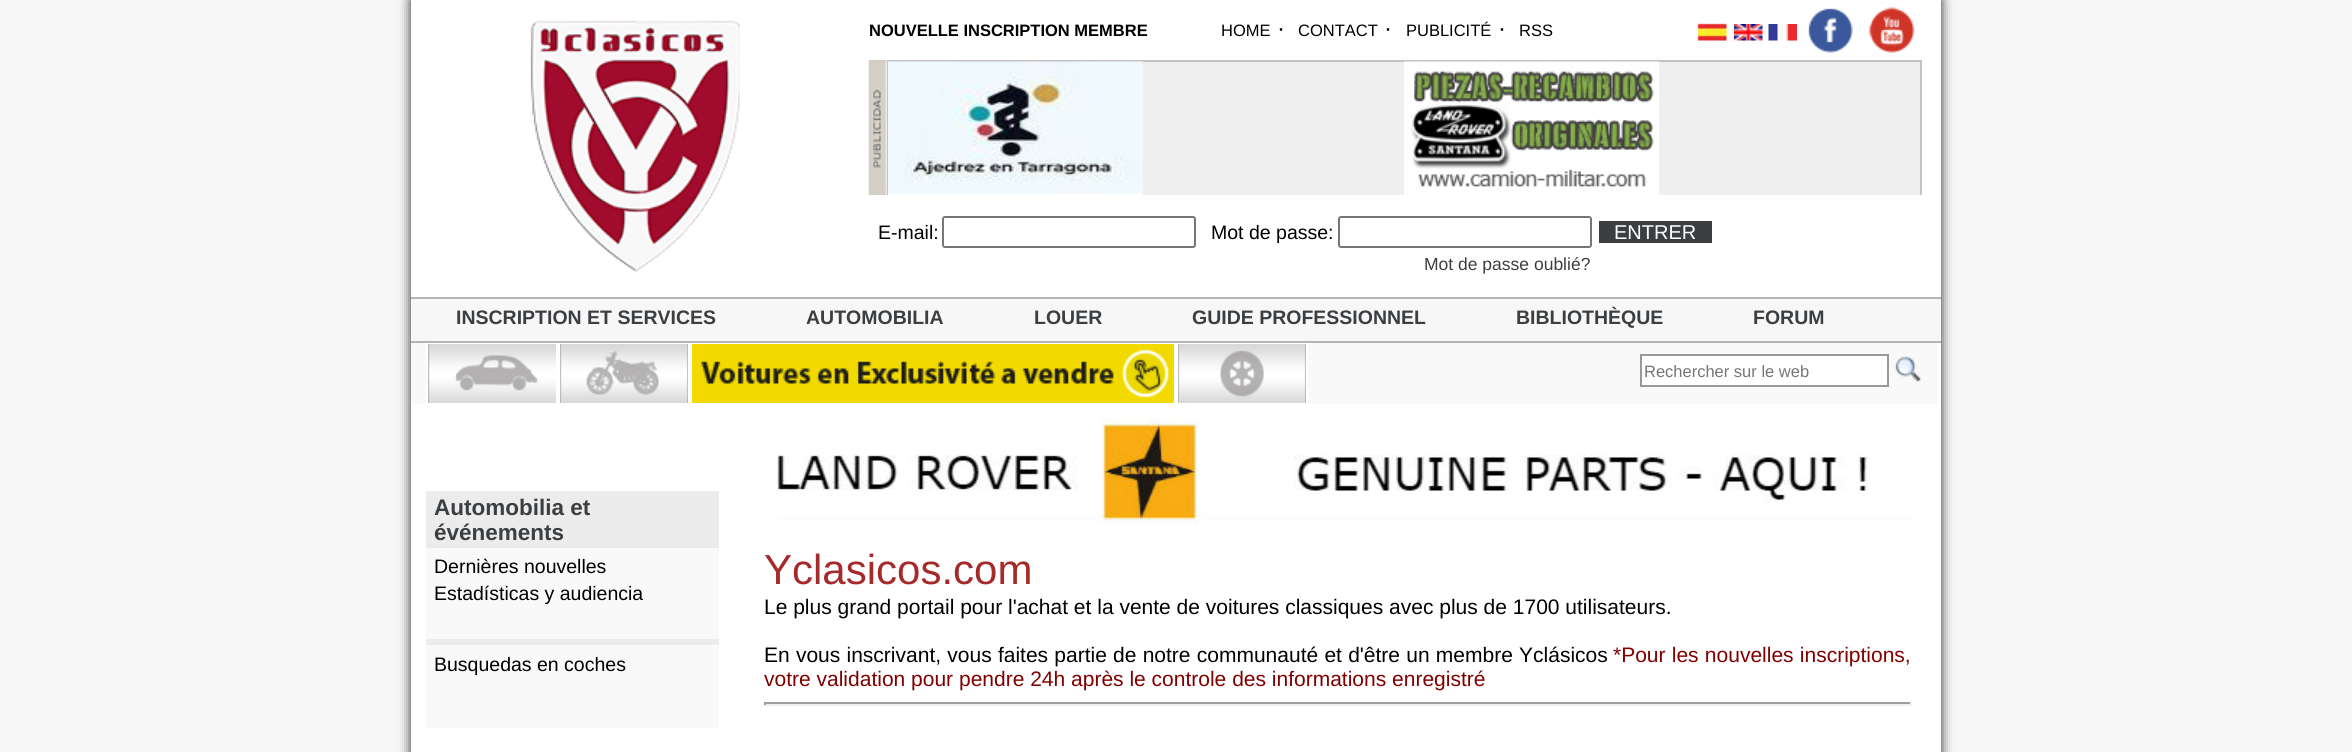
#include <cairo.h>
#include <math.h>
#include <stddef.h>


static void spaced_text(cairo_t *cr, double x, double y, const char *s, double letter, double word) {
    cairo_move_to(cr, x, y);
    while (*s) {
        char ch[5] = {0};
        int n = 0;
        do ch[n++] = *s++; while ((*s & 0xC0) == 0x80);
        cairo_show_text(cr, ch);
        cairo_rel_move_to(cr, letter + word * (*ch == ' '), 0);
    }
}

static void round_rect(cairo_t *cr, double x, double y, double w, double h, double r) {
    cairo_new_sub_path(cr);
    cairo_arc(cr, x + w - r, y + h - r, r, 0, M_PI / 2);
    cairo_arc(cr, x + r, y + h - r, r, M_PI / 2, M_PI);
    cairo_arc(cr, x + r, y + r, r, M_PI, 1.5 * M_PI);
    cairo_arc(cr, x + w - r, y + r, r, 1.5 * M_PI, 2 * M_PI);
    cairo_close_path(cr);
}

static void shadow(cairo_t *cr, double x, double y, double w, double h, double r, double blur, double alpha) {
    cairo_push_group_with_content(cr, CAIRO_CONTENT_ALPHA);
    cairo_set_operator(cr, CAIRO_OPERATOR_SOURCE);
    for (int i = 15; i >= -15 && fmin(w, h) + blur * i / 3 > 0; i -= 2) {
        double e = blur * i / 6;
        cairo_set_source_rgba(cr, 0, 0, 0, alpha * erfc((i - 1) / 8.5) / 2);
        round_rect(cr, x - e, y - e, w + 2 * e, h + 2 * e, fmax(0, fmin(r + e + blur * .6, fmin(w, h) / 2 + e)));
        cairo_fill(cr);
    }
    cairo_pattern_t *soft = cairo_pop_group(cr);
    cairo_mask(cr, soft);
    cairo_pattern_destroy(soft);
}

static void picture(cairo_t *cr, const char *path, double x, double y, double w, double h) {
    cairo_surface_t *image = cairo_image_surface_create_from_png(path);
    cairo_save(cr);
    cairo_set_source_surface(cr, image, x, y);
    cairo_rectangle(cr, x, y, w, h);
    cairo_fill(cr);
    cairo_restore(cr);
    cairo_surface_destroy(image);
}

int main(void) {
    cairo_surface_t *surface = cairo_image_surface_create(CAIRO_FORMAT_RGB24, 2352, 752);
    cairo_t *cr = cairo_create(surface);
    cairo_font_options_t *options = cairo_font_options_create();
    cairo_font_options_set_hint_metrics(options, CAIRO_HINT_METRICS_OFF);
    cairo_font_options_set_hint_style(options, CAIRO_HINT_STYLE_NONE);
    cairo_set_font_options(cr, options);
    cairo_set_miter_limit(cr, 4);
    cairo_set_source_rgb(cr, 0.965, 0.965, 0.965);
    cairo_paint(cr);
    cairo_set_source_rgb(cr, 0.133, 0.133, 0.133);
    shadow(cr, 411, 0, 1530, 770, 0, 6, 1);
    cairo_set_source_rgb(cr, 1, 1, 1);
    cairo_rectangle(cr, 411, 0, 1530, 752);
    cairo_fill(cr);
    picture(cr, "img1.png", 530, 20, 210, 252);
    cairo_select_font_face(cr, "Liberation Sans", CAIRO_FONT_SLANT_NORMAL, CAIRO_FONT_WEIGHT_BOLD);
    cairo_set_font_size(cr, 16.5);
    cairo_set_source_rgb(cr, 0, 0, 0);
    cairo_move_to(cr, 869, 36);
    cairo_show_text(cr, "NOUVELLE INSCRIPTION MEMBRE");
    cairo_select_font_face(cr, "Liberation Sans", CAIRO_FONT_SLANT_NORMAL, CAIRO_FONT_WEIGHT_NORMAL);
    cairo_move_to(cr, 1221, 36);
    cairo_show_text(cr, "HOME");
    cairo_set_font_size(cr, 24);
    cairo_move_to(cr, 1277, 36);
    cairo_show_text(cr, "·");
    cairo_set_font_size(cr, 16.5);
    cairo_move_to(cr, 1298, 36);
    cairo_show_text(cr, "CONTACT");
    cairo_set_font_size(cr, 24);
    cairo_move_to(cr, 1384, 36);
    cairo_show_text(cr, "·");
    cairo_set_font_size(cr, 16.5);
    cairo_move_to(cr, 1406, 36);
    cairo_show_text(cr, "PUBLICITÉ");
    cairo_set_font_size(cr, 24);
    cairo_move_to(cr, 1498, 36);
    cairo_show_text(cr, "·");
    cairo_set_font_size(cr, 16.5);
    cairo_move_to(cr, 1519, 36);
    cairo_show_text(cr, "RSS");
    picture(cr, "img2.png", 1697, 23, 30, 18);
    picture(cr, "img3.png", 1734, 24, 29, 17);
    picture(cr, "img4.png", 1768, 24, 29, 17);
    picture(cr, "img5.png", 1808, 7, 45, 46);
    picture(cr, "img6.png", 1868, 7, 47, 46);
    picture(cr, "img7.png", 868, 60, 19, 135);
    cairo_save(cr);
    cairo_rectangle(cr, 887, 60, 1035, 135);
    cairo_clip(cr);
    cairo_rectangle(cr, 888, 61, 1033, 136);
    cairo_set_source_rgb(cr, 0.769, 0.761, 0.761);
    cairo_stroke(cr);
    cairo_restore(cr);
    cairo_set_source_rgb(cr, 0.937, 0.937, 0.937);
    cairo_rectangle(cr, 1143, 62, 261, 133);
    cairo_fill(cr);
    cairo_set_source_rgb(cr, 1, 1, 1);
    cairo_rectangle(cr, 888, 193, 1, 2);
    cairo_fill(cr);
    picture(cr, "img8.png", 888, 61, 255, 133);
    cairo_set_source_rgb(cr, 0.937, 0.937, 0.937);
    cairo_rectangle(cr, 1659, 62, 261, 133);
    cairo_fill(cr);
    picture(cr, "img9.png", 1404, 61, 255, 126);
    cairo_set_font_size(cr, 19.5);
    cairo_set_source_rgb(cr, 0, 0, 0);
    cairo_move_to(cr, 878, 239);
    cairo_show_text(cr, "E-mail:");
    round_rect(cr, 943, 217, 252, 30, 2);
    cairo_set_source_rgb(cr, 0.463, 0.463, 0.463);
    cairo_stroke(cr);
    cairo_set_source_rgb(cr, 0, 0, 0);
    cairo_move_to(cr, 1211, 239);
    cairo_show_text(cr, "Mot de passe:");
    round_rect(cr, 1339, 217, 252, 30, 2);
    cairo_set_source_rgb(cr, 0.463, 0.463, 0.463);
    cairo_stroke(cr);
    cairo_set_font_size(cr, 17.5);
    cairo_set_source_rgb(cr, 0.235, 0.247, 0.259);
    cairo_move_to(cr, 1424, 270);
    cairo_show_text(cr, "Mot de passe oublié?");
    cairo_rectangle(cr, 1599, 221, 113, 22);
    cairo_fill(cr);
    cairo_set_font_size(cr, 20);
    cairo_set_source_rgb(cr, 1, 1, 1);
    cairo_move_to(cr, 1614, 239);
    cairo_show_text(cr, "ENTRER");
    cairo_set_source_rgb(cr, 0.965, 0.965, 0.965);
    cairo_rectangle(cr, 411, 299, 1530, 42);
    cairo_fill(cr);
    cairo_set_source_rgb(cr, 0.706, 0.706, 0.706);
    cairo_rectangle(cr, 411, 297, 1530, 2);
    cairo_fill(cr);
    cairo_set_source_rgb(cr, 0.976, 0.976, 0.976);
    cairo_rectangle(cr, 411, 343, 1527, 61);
    cairo_fill(cr);
    picture(cr, "img10.png", 428, 344, 128, 59);
    cairo_rectangle(cr, 427, 343, 130, 61);
    cairo_set_source_rgb(cr, 1, 1, 1);
    cairo_stroke(cr);
    picture(cr, "img11.png", 560, 344, 128, 59);
    cairo_rectangle(cr, 559, 343, 130, 61);
    cairo_stroke(cr);
    picture(cr, "img12.png", 692, 344, 482, 59);
    cairo_rectangle(cr, 691, 343, 484, 61);
    cairo_stroke(cr);
    picture(cr, "img13.png", 1178, 344, 128, 59);
    cairo_rectangle(cr, 1177, 343, 130, 61);
    cairo_stroke(cr);
    cairo_set_source_rgb(cr, 0.706, 0.706, 0.706);
    cairo_rectangle(cr, 411, 341, 1530, 2);
    cairo_fill(cr);
    cairo_select_font_face(cr, "Liberation Sans", CAIRO_FONT_SLANT_NORMAL, CAIRO_FONT_WEIGHT_BOLD);
    cairo_set_font_size(cr, 19.5);
    cairo_set_source_rgb(cr, 0.235, 0.247, 0.259);
    cairo_move_to(cr, 456, 324);
    cairo_show_text(cr, "INSCRIPTION ET SERVICES");
    cairo_move_to(cr, 806, 324);
    cairo_show_text(cr, "AUTOMOBILIA");
    cairo_move_to(cr, 1034, 324);
    cairo_show_text(cr, "LOUER");
    cairo_move_to(cr, 1192, 324);
    cairo_show_text(cr, "GUIDE PROFESSIONNEL");
    cairo_move_to(cr, 1516, 324);
    cairo_show_text(cr, "BIBLIOTHÈQUE");
    cairo_move_to(cr, 1753, 324);
    cairo_show_text(cr, "FORUM");
    cairo_set_source_rgb(cr, 1, 1, 1);
    cairo_rectangle(cr, 1641, 355, 247, 31);
    cairo_fill_preserve(cr);
    cairo_set_source_rgb(cr, 0.6, 0.6, 0.6);
    cairo_stroke(cr);
    cairo_select_font_face(cr, "Liberation Sans", CAIRO_FONT_SLANT_NORMAL, CAIRO_FONT_WEIGHT_NORMAL);
    cairo_set_font_size(cr, 16.5);
    cairo_set_source_rgb(cr, 0.459, 0.459, 0.459);
    cairo_move_to(cr, 1644, 377);
    cairo_show_text(cr, "Rechercher sur le web");
    picture(cr, "img14.png", 1895, 356, 26, 26);
    picture(cr, "img15.png", 777, 418, 1141, 106);
    cairo_set_source_rgb(cr, 0.976, 0.976, 0.976);
    cairo_rectangle(cr, 426, 548, 293, 180);
    cairo_fill(cr);
    cairo_set_source_rgb(cr, 0.922, 0.922, 0.922);
    cairo_rectangle(cr, 426, 491, 293, 57);
    cairo_fill(cr);
    cairo_select_font_face(cr, "Liberation Sans", CAIRO_FONT_SLANT_NORMAL, CAIRO_FONT_WEIGHT_BOLD);
    cairo_set_font_size(cr, 22.5);
    cairo_set_source_rgb(cr, 0.235, 0.247, 0.259);
    cairo_move_to(cr, 434, 515);
    cairo_show_text(cr, "Automobilia et");
    cairo_move_to(cr, 434, 540);
    cairo_show_text(cr, "événements");
    cairo_select_font_face(cr, "Liberation Sans", CAIRO_FONT_SLANT_NORMAL, CAIRO_FONT_WEIGHT_NORMAL);
    cairo_set_font_size(cr, 19.5);
    cairo_set_source_rgb(cr, 0, 0, 0);
    cairo_move_to(cr, 434, 573);
    cairo_show_text(cr, "Dernières nouvelles");
    cairo_move_to(cr, 434, 600);
    cairo_show_text(cr, "Estadísticas y audiencia");
    cairo_set_source_rgb(cr, 0.922, 0.922, 0.922);
    cairo_rectangle(cr, 426, 639, 293, 6);
    cairo_fill(cr);
    cairo_set_source_rgb(cr, 0, 0, 0);
    cairo_move_to(cr, 434, 671);
    cairo_show_text(cr, "Busquedas en coches");
    cairo_set_font_size(cr, 42);
    cairo_set_source_rgb(cr, 0.647, 0.165, 0.165);
    cairo_move_to(cr, 764, 584);
    cairo_show_text(cr, "Yclasicos.com");
    cairo_set_font_size(cr, 21);
    cairo_set_source_rgb(cr, 0, 0, 0);
    cairo_move_to(cr, 764, 614);
    cairo_show_text(cr, "Le plus grand portail pour l'achat et la vente de voitures classiques avec plus de 1700 utilisateurs.");
    spaced_text(cr, 764, 662, "En vous inscrivant, vous faites partie de notre communauté et d'être un membre Yclásicos", 0, 0.4);
    cairo_set_source_rgb(cr, 0.502, 0, 0);
    spaced_text(cr, 1613, 662, "*Pour les nouvelles inscriptions,", 0, 0.4);
    cairo_move_to(cr, 764, 686);
    cairo_show_text(cr, "votre validation pour pendre 24h après le controle des informations enregistré");
    cairo_set_source_rgb(cr, 0.624, 0.624, 0.624);
    cairo_rectangle(cr, 764, 702, 1147, 2);
    cairo_fill(cr);
    cairo_set_source_rgb(cr, 0.933, 0.933, 0.933);
    cairo_rectangle(cr, 1910, 702, 2, 3);
    cairo_fill(cr);
    cairo_rectangle(cr, 764, 704, 1147, 2);
    cairo_fill(cr);
    cairo_set_source_rgb(cr, 0.624, 0.624, 0.624);
    cairo_rectangle(cr, 764, 702, 2, 3);
    cairo_fill(cr);
    cairo_surface_write_to_png(surface, "page.png");
    cairo_font_options_destroy(options);
    cairo_destroy(cr);
    cairo_surface_destroy(surface);
    return 0;
}
